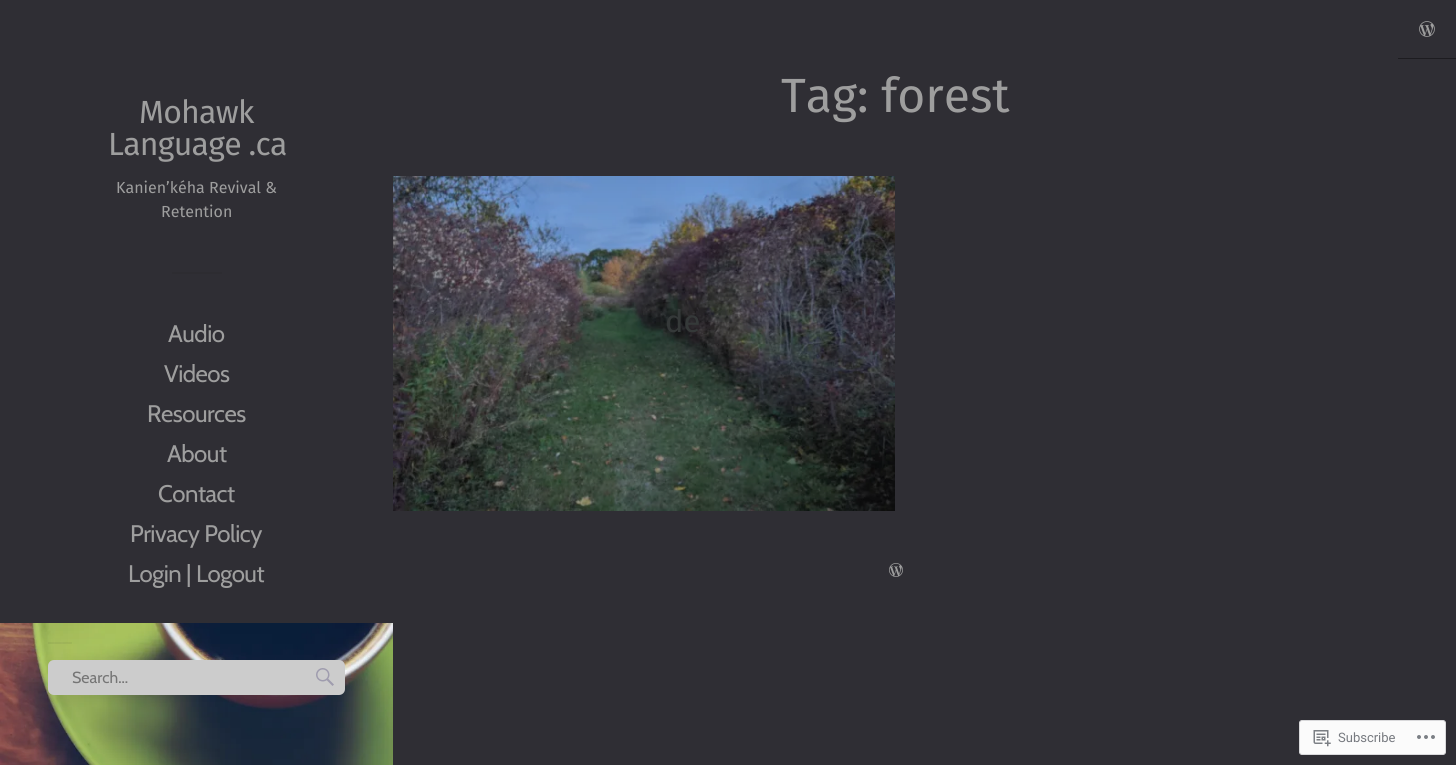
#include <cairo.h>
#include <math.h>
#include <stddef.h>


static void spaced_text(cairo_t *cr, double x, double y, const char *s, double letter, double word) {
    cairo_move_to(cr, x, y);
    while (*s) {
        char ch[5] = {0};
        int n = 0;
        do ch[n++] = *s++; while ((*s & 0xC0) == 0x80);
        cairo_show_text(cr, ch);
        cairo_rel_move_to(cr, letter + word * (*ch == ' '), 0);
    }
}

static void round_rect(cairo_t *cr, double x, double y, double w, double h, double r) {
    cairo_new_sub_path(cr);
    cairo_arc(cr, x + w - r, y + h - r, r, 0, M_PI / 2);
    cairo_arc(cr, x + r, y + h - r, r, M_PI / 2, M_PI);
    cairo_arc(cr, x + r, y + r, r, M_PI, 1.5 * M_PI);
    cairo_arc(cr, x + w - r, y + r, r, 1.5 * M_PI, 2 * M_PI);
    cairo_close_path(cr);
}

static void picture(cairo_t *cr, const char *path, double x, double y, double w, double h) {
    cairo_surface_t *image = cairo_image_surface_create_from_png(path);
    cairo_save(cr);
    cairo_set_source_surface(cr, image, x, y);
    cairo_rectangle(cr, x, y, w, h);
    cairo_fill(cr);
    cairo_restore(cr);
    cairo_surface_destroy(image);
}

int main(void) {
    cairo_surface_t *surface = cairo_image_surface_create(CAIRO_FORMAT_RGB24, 1456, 765);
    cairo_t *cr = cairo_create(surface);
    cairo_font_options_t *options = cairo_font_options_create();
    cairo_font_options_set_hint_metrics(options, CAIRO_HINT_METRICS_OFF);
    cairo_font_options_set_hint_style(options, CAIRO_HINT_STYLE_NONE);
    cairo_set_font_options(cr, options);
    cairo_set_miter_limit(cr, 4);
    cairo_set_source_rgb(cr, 0.184, 0.18, 0.204);
    cairo_paint(cr);
    cairo_set_source_rgb(cr, 0.114, 0.11, 0.125);
    cairo_rectangle(cr, 1398, 58, 58, 1);
    cairo_fill(cr);
    picture(cr, "img1.png", 1419, 21, 16, 16);
    picture(cr, "img2.png", 0, 623, 393, 142);
    cairo_select_font_face(cr, "Fira Sans", CAIRO_FONT_SLANT_NORMAL, CAIRO_FONT_WEIGHT_NORMAL);
    cairo_set_font_size(cr, 32);
    cairo_set_source_rgb(cr, 0.62, 0.62, 0.62);
    spaced_text(cr, 139, 123, "Mohawk", -0.75, 0);
    spaced_text(cr, 108, 155, "Language .ca", -0.75, 0);
    cairo_set_font_size(cr, 16);
    cairo_move_to(cr, 116, 193);
    cairo_show_text(cr, "Kanien’kéha Revival &");
    cairo_move_to(cr, 161, 217);
    cairo_show_text(cr, "Retention");
    cairo_set_source_rgb(cr, 0.176, 0.173, 0.192);
    cairo_rectangle(cr, 172, 272, 50, 2);
    cairo_fill(cr);
    cairo_select_font_face(cr, "Cabin", CAIRO_FONT_SLANT_NORMAL, CAIRO_FONT_WEIGHT_NORMAL);
    cairo_set_font_size(cr, 24);
    cairo_set_source_rgb(cr, 0.62, 0.62, 0.62);
    spaced_text(cr, 168, 342, "Audio", -0.5, 0);
    spaced_text(cr, 164, 382, "Videos", -0.5, 0);
    spaced_text(cr, 147, 422, "Resources", -0.5, 0);
    spaced_text(cr, 167, 462, "About", -0.5, 0);
    spaced_text(cr, 158, 502, "Contact", -0.5, 0);
    spaced_text(cr, 130, 542, "Privacy Policy", -0.5, 0);
    spaced_text(cr, 128, 582, "Login | Logout", -0.5, 0);
    cairo_set_source_rgba(cr, 0, 0, 0, 0.05);
    cairo_rectangle(cr, 48, 642, 24, 2);
    cairo_fill(cr);
    cairo_set_source_rgb(cr, 0.8, 0.8, 0.8);
    round_rect(cr, 48, 660, 297, 35, 6);
    cairo_fill(cr);
    cairo_set_font_size(cr, 16);
    cairo_set_source_rgb(cr, 0.459, 0.459, 0.459);
    cairo_move_to(cr, 72, 683);
    cairo_show_text(cr, "Search...");
    picture(cr, "img3.png", 316, 668, 18, 18);
    cairo_select_font_face(cr, "Fira Sans", CAIRO_FONT_SLANT_NORMAL, CAIRO_FONT_WEIGHT_NORMAL);
    cairo_set_font_size(cr, 48);
    cairo_set_source_rgb(cr, 0.62, 0.62, 0.62);
    cairo_move_to(cr, 781, 112);
    cairo_show_text(cr, "Tag: forest");
    picture(cr, "img4.png", 393, 176, 502, 335);
    cairo_set_font_size(cr, 31);
    cairo_set_source_rgb(cr, 0.208, 0.224, 0.224);
    cairo_move_to(cr, 665, 332);
    cairo_show_text(cr, "de");
    picture(cr, "img5.png", 889, 563, 14, 14);
    cairo_set_source_rgb(cr, 0.984, 0.984, 0.984);
    round_rect(cr, 1299.5, 720.5, 146, 34, 2.5);
    cairo_fill_preserve(cr);
    cairo_set_source_rgb(cr, 0.851, 0.851, 0.859);
    cairo_set_line_width(cr, 1);
    cairo_stroke(cr);
    picture(cr, "img6.png", 1313, 730, 18, 17);
    cairo_select_font_face(cr, "Roboto", CAIRO_FONT_SLANT_NORMAL, CAIRO_FONT_WEIGHT_NORMAL);
    cairo_set_font_size(cr, 13);
    cairo_set_source_rgb(cr, 0.467, 0.478, 0.502);
    cairo_move_to(cr, 1338, 742);
    cairo_show_text(cr, "Subscribe");
    picture(cr, "img7.png", 1417, 735, 18, 4);
    cairo_surface_write_to_png(surface, "page.png");
    cairo_font_options_destroy(options);
    cairo_destroy(cr);
    cairo_surface_destroy(surface);
    return 0;
}
